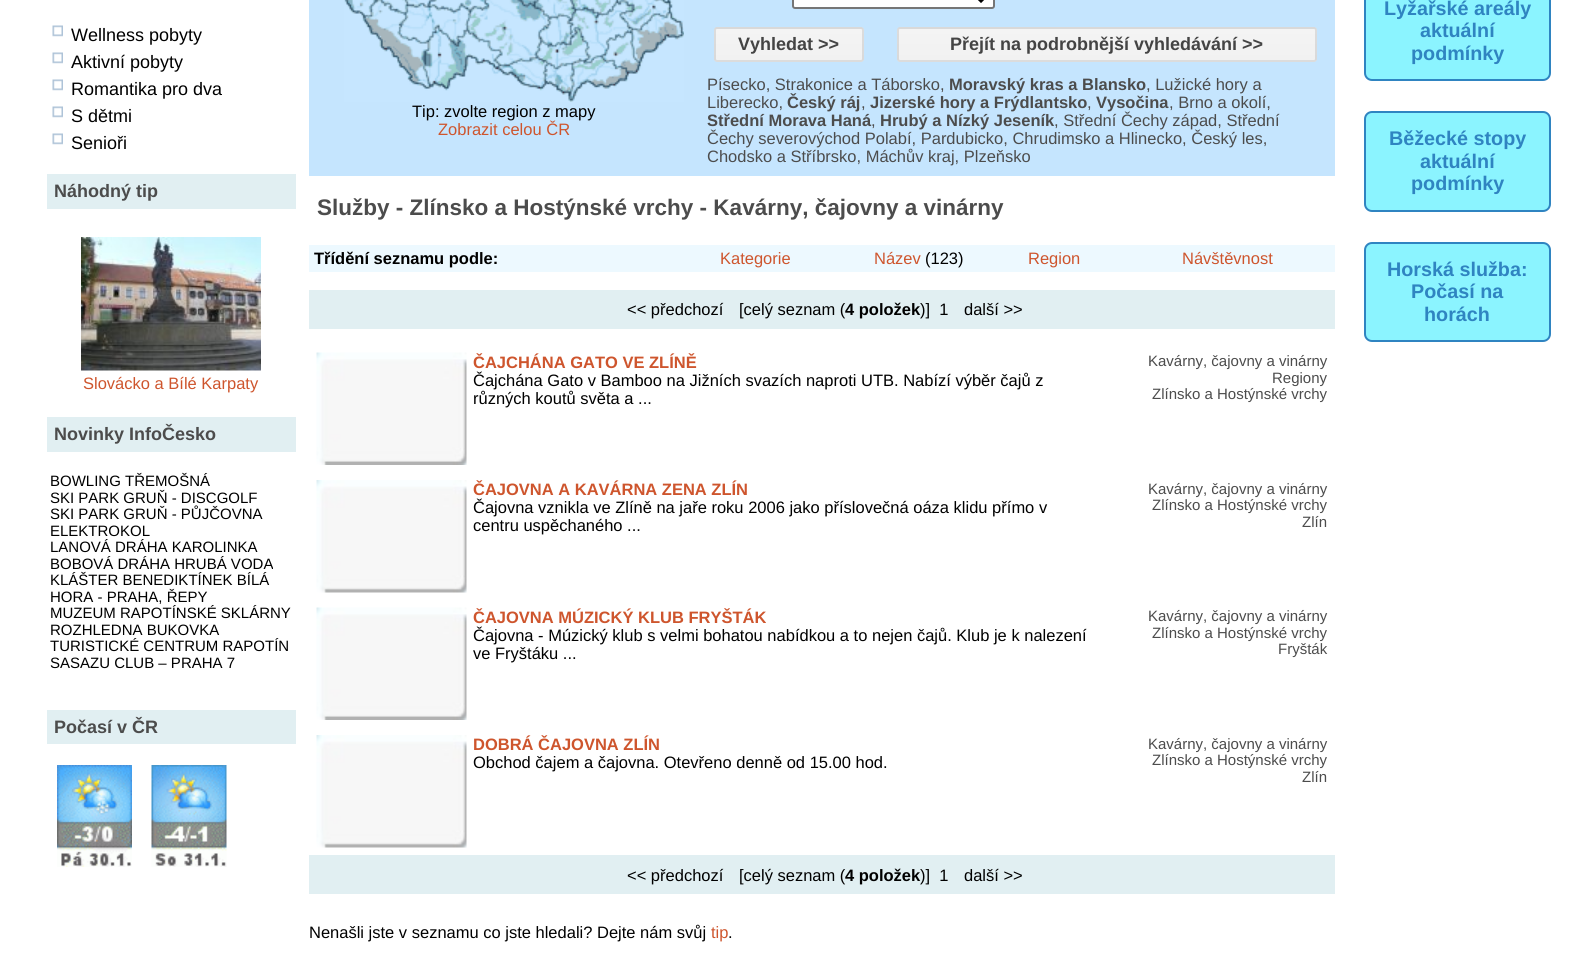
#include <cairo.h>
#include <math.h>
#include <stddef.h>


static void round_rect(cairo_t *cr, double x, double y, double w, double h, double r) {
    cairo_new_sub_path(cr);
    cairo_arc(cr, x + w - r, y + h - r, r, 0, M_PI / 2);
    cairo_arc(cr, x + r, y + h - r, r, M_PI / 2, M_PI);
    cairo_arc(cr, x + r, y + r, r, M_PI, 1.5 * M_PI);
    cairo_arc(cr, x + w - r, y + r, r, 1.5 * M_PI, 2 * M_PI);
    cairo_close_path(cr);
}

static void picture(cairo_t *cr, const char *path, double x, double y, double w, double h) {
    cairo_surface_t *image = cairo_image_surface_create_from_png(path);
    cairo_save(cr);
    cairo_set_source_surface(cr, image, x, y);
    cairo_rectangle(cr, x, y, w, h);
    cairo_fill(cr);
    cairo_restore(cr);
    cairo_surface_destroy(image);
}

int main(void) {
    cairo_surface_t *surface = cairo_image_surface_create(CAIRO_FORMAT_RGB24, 1594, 953);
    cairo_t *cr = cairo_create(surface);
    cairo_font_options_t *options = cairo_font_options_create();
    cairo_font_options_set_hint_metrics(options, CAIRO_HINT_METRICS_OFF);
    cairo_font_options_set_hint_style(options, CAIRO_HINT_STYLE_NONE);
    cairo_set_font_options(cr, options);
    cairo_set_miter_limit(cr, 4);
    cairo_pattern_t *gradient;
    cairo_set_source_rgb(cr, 1, 1, 1);
    cairo_paint(cr);
    picture(cr, "img1.png", 52, 25, 11, 12);
    cairo_select_font_face(cr, "Liberation Sans", CAIRO_FONT_SLANT_NORMAL, CAIRO_FONT_WEIGHT_NORMAL);
    cairo_set_font_size(cr, 18);
    cairo_set_source_rgb(cr, 0, 0, 0);
    cairo_move_to(cr, 71, 41);
    cairo_show_text(cr, "Wellness pobyty");
    picture(cr, "img1.png", 52, 52, 11, 12);
    cairo_move_to(cr, 71, 68);
    cairo_show_text(cr, "Aktivní pobyty");
    picture(cr, "img1.png", 52, 79, 11, 12);
    cairo_move_to(cr, 71, 95);
    cairo_show_text(cr, "Romantika pro dva");
    picture(cr, "img1.png", 52, 106, 11, 12);
    cairo_move_to(cr, 71, 122);
    cairo_show_text(cr, "S dětmi");
    picture(cr, "img1.png", 52, 133, 11, 12);
    cairo_move_to(cr, 71, 149);
    cairo_show_text(cr, "Senioři");
    cairo_set_source_rgb(cr, 0.882, 0.937, 0.949);
    cairo_rectangle(cr, 47, 174, 249, 35);
    cairo_fill(cr);
    cairo_select_font_face(cr, "Liberation Sans", CAIRO_FONT_SLANT_NORMAL, CAIRO_FONT_WEIGHT_BOLD);
    cairo_set_source_rgb(cr, 0.298, 0.298, 0.298);
    cairo_move_to(cr, 54, 197);
    cairo_show_text(cr, "Náhodný tip");
    picture(cr, "img2.png", 81, 237, 180, 134);
    cairo_select_font_face(cr, "Liberation Sans", CAIRO_FONT_SLANT_NORMAL, CAIRO_FONT_WEIGHT_NORMAL);
    cairo_set_font_size(cr, 16.5);
    cairo_set_source_rgb(cr, 0.808, 0.333, 0.176);
    cairo_move_to(cr, 83, 389);
    cairo_show_text(cr, "Slovácko a Bílé Karpaty");
    cairo_set_source_rgb(cr, 0.882, 0.937, 0.949);
    cairo_rectangle(cr, 47, 417, 249, 35);
    cairo_fill(cr);
    cairo_select_font_face(cr, "Liberation Sans", CAIRO_FONT_SLANT_NORMAL, CAIRO_FONT_WEIGHT_BOLD);
    cairo_set_font_size(cr, 18);
    cairo_set_source_rgb(cr, 0.298, 0.298, 0.298);
    cairo_move_to(cr, 54, 440);
    cairo_show_text(cr, "Novinky InfoČesko");
    cairo_select_font_face(cr, "Liberation Sans", CAIRO_FONT_SLANT_NORMAL, CAIRO_FONT_WEIGHT_NORMAL);
    cairo_set_font_size(cr, 15);
    cairo_set_source_rgb(cr, 0, 0, 0);
    cairo_move_to(cr, 50, 486);
    cairo_show_text(cr, "BOWLING TŘEMOŠNÁ");
    cairo_move_to(cr, 50, 503);
    cairo_show_text(cr, "SKI PARK GRUŇ - DISCGOLF");
    cairo_move_to(cr, 50, 519);
    cairo_show_text(cr, "SKI PARK GRUŇ - PŮJČOVNA");
    cairo_move_to(cr, 50, 536);
    cairo_show_text(cr, "ELEKTROKOL");
    cairo_move_to(cr, 50, 552);
    cairo_show_text(cr, "LANOVÁ DRÁHA KAROLINKA");
    cairo_move_to(cr, 50, 569);
    cairo_show_text(cr, "BOBOVÁ DRÁHA HRUBÁ VODA");
    cairo_move_to(cr, 50, 585);
    cairo_show_text(cr, "KLÁŠTER BENEDIKTÍNEK BÍLÁ");
    cairo_move_to(cr, 50, 602);
    cairo_show_text(cr, "HORA - PRAHA, ŘEPY");
    cairo_move_to(cr, 50, 618);
    cairo_show_text(cr, "MUZEUM RAPOTÍNSKÉ SKLÁRNY");
    cairo_move_to(cr, 50, 635);
    cairo_show_text(cr, "ROZHLEDNA BUKOVKA");
    cairo_move_to(cr, 50, 651);
    cairo_show_text(cr, "TURISTICKÉ CENTRUM RAPOTÍN");
    cairo_move_to(cr, 50, 668);
    cairo_show_text(cr, "SASAZU CLUB – PRAHA 7");
    cairo_set_source_rgb(cr, 0.882, 0.937, 0.949);
    cairo_rectangle(cr, 47, 710, 249, 34);
    cairo_fill(cr);
    cairo_select_font_face(cr, "Liberation Sans", CAIRO_FONT_SLANT_NORMAL, CAIRO_FONT_WEIGHT_BOLD);
    cairo_set_font_size(cr, 18);
    cairo_set_source_rgb(cr, 0.298, 0.298, 0.298);
    cairo_move_to(cr, 54, 733);
    cairo_show_text(cr, "Počasí v ČR");
    picture(cr, "img3.png", 57, 765, 75, 102);
    picture(cr, "img4.png", 151, 765, 76, 102);
    cairo_set_source_rgb(cr, 0.773, 0.898, 0.996);
    cairo_rectangle(cr, 309, 0, 1026, 176);
    cairo_fill(cr);
    picture(cr, "img5.png", 344, 0, 340, 102);
    cairo_select_font_face(cr, "Liberation Sans", CAIRO_FONT_SLANT_NORMAL, CAIRO_FONT_WEIGHT_NORMAL);
    cairo_set_font_size(cr, 16.5);
    cairo_set_source_rgb(cr, 0, 0, 0);
    cairo_move_to(cr, 412, 117);
    cairo_show_text(cr, "Tip: zvolte region z mapy");
    cairo_set_source_rgb(cr, 0.808, 0.333, 0.176);
    cairo_move_to(cr, 438, 135);
    cairo_show_text(cr, "Zobrazit celou ČR");
    cairo_set_source_rgb(cr, 1, 1, 1);
    round_rect(cr, 793, -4, 201, 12, 2);
    cairo_fill_preserve(cr);
    cairo_set_source_rgb(cr, 0.463, 0.463, 0.463);
    cairo_stroke(cr);
    cairo_new_path(cr);
    cairo_move_to(cr, 975, -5);
    cairo_line_to(cr, 981, 1);
    cairo_line_to(cr, 987, -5);
    cairo_set_source_rgb(cr, 0, 0, 0);
    cairo_set_line_width(cr, 3);
    cairo_stroke(cr);
    cairo_save(cr);
    round_rect(cr, 714, 27, 150, 35, 3);
    cairo_clip(cr);
    gradient = cairo_pattern_create_linear(789, -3, 789, 29);
    cairo_pattern_add_color_stop_rgba(gradient, 0, 0.957, 0.957, 0.957, 1);
    cairo_pattern_add_color_stop_rgba(gradient, 1, 0.945, 0.945, 0.945, 1);
    cairo_set_source(cr, gradient);
    cairo_pattern_destroy(gradient);
    cairo_rectangle(cr, 714, 27, 150, 2);
    cairo_fill(cr);
    gradient = cairo_pattern_create_linear(789, 28, 789, 60);
    cairo_pattern_add_color_stop_rgba(gradient, 0, 0.957, 0.957, 0.957, 1);
    cairo_pattern_add_color_stop_rgba(gradient, 1, 0.945, 0.945, 0.945, 1);
    cairo_set_source(cr, gradient);
    cairo_pattern_destroy(gradient);
    cairo_rectangle(cr, 714, 29, 150, 31);
    cairo_fill(cr);
    gradient = cairo_pattern_create_linear(789, 60, 789, 92);
    cairo_pattern_add_color_stop_rgba(gradient, 0, 0.957, 0.957, 0.957, 1);
    cairo_pattern_add_color_stop_rgba(gradient, 1, 0.945, 0.945, 0.945, 1);
    cairo_set_source(cr, gradient);
    cairo_pattern_destroy(gradient);
    cairo_rectangle(cr, 714, 60, 150, 2);
    cairo_fill(cr);
    cairo_restore(cr);
    round_rect(cr, 715, 28, 148, 33, 2);
    cairo_set_source_rgba(cr, 0, 0, 0, 0.1);
    cairo_set_line_width(cr, 2);
    cairo_stroke(cr);
    cairo_select_font_face(cr, "Liberation Sans", CAIRO_FONT_SLANT_NORMAL, CAIRO_FONT_WEIGHT_BOLD);
    cairo_set_font_size(cr, 18);
    cairo_set_source_rgb(cr, 0.267, 0.267, 0.267);
    cairo_move_to(cr, 738, 50);
    cairo_show_text(cr, "Vyhledat >>");
    cairo_save(cr);
    round_rect(cr, 897, 27, 420, 35, 3);
    cairo_clip(cr);
    gradient = cairo_pattern_create_linear(1107, -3, 1107, 29);
    cairo_pattern_add_color_stop_rgba(gradient, 0, 0.957, 0.957, 0.957, 1);
    cairo_pattern_add_color_stop_rgba(gradient, 1, 0.945, 0.945, 0.945, 1);
    cairo_set_source(cr, gradient);
    cairo_pattern_destroy(gradient);
    cairo_rectangle(cr, 897, 27, 420, 2);
    cairo_fill(cr);
    gradient = cairo_pattern_create_linear(1107, 28, 1107, 60);
    cairo_pattern_add_color_stop_rgba(gradient, 0, 0.957, 0.957, 0.957, 1);
    cairo_pattern_add_color_stop_rgba(gradient, 1, 0.945, 0.945, 0.945, 1);
    cairo_set_source(cr, gradient);
    cairo_pattern_destroy(gradient);
    cairo_rectangle(cr, 897, 29, 420, 31);
    cairo_fill(cr);
    gradient = cairo_pattern_create_linear(1107, 60, 1107, 92);
    cairo_pattern_add_color_stop_rgba(gradient, 0, 0.957, 0.957, 0.957, 1);
    cairo_pattern_add_color_stop_rgba(gradient, 1, 0.945, 0.945, 0.945, 1);
    cairo_set_source(cr, gradient);
    cairo_pattern_destroy(gradient);
    cairo_rectangle(cr, 897, 60, 420, 2);
    cairo_fill(cr);
    cairo_restore(cr);
    round_rect(cr, 898, 28, 418, 33, 2);
    cairo_set_source_rgba(cr, 0, 0, 0, 0.1);
    cairo_stroke(cr);
    cairo_set_source_rgb(cr, 0.267, 0.267, 0.267);
    cairo_move_to(cr, 950, 50);
    cairo_show_text(cr, "Přejít na podrobnější vyhledávání >>");
    cairo_select_font_face(cr, "Liberation Sans", CAIRO_FONT_SLANT_NORMAL, CAIRO_FONT_WEIGHT_NORMAL);
    cairo_set_font_size(cr, 16.5);
    cairo_set_source_rgb(cr, 0.298, 0.298, 0.298);
    cairo_move_to(cr, 707, 90);
    cairo_show_text(cr, "Písecko, Strakonice a Táborsko,");
    cairo_select_font_face(cr, "Liberation Sans", CAIRO_FONT_SLANT_NORMAL, CAIRO_FONT_WEIGHT_BOLD);
    cairo_move_to(cr, 949, 90);
    cairo_show_text(cr, "Moravský kras a Blansko");
    cairo_select_font_face(cr, "Liberation Sans", CAIRO_FONT_SLANT_NORMAL, CAIRO_FONT_WEIGHT_NORMAL);
    cairo_move_to(cr, 1146, 90);
    cairo_show_text(cr, ", Lužické hory a");
    cairo_move_to(cr, 707, 108);
    cairo_show_text(cr, "Liberecko,");
    cairo_select_font_face(cr, "Liberation Sans", CAIRO_FONT_SLANT_NORMAL, CAIRO_FONT_WEIGHT_BOLD);
    cairo_move_to(cr, 787, 108);
    cairo_show_text(cr, "Český ráj");
    cairo_select_font_face(cr, "Liberation Sans", CAIRO_FONT_SLANT_NORMAL, CAIRO_FONT_WEIGHT_NORMAL);
    cairo_move_to(cr, 861, 108);
    cairo_show_text(cr, ",");
    cairo_select_font_face(cr, "Liberation Sans", CAIRO_FONT_SLANT_NORMAL, CAIRO_FONT_WEIGHT_BOLD);
    cairo_move_to(cr, 870, 108);
    cairo_show_text(cr, "Jizerské hory a Frýdlantsko");
    cairo_select_font_face(cr, "Liberation Sans", CAIRO_FONT_SLANT_NORMAL, CAIRO_FONT_WEIGHT_NORMAL);
    cairo_move_to(cr, 1087, 108);
    cairo_show_text(cr, ",");
    cairo_select_font_face(cr, "Liberation Sans", CAIRO_FONT_SLANT_NORMAL, CAIRO_FONT_WEIGHT_BOLD);
    cairo_move_to(cr, 1096, 108);
    cairo_show_text(cr, "Vysočina");
    cairo_select_font_face(cr, "Liberation Sans", CAIRO_FONT_SLANT_NORMAL, CAIRO_FONT_WEIGHT_NORMAL);
    cairo_move_to(cr, 1169, 108);
    cairo_show_text(cr, ", Brno a okolí,");
    cairo_select_font_face(cr, "Liberation Sans", CAIRO_FONT_SLANT_NORMAL, CAIRO_FONT_WEIGHT_BOLD);
    cairo_move_to(cr, 707, 126);
    cairo_show_text(cr, "Střední Morava Haná");
    cairo_select_font_face(cr, "Liberation Sans", CAIRO_FONT_SLANT_NORMAL, CAIRO_FONT_WEIGHT_NORMAL);
    cairo_move_to(cr, 871, 126);
    cairo_show_text(cr, ",");
    cairo_select_font_face(cr, "Liberation Sans", CAIRO_FONT_SLANT_NORMAL, CAIRO_FONT_WEIGHT_BOLD);
    cairo_move_to(cr, 880, 126);
    cairo_show_text(cr, "Hrubý a Nízký Jeseník");
    cairo_select_font_face(cr, "Liberation Sans", CAIRO_FONT_SLANT_NORMAL, CAIRO_FONT_WEIGHT_NORMAL);
    cairo_move_to(cr, 1054, 126);
    cairo_show_text(cr, ", Střední Čechy západ, Střední");
    cairo_move_to(cr, 707, 144);
    cairo_show_text(cr, "Čechy severovýchod Polabí, Pardubicko, Chrudimsko a Hlinecko, Český les,");
    cairo_move_to(cr, 707, 162);
    cairo_show_text(cr, "Chodsko a Stříbrsko, Máchův kraj, Plzeňsko");
    cairo_select_font_face(cr, "Liberation Sans", CAIRO_FONT_SLANT_NORMAL, CAIRO_FONT_WEIGHT_BOLD);
    cairo_set_font_size(cr, 22.5);
    cairo_move_to(cr, 317, 215);
    cairo_show_text(cr, "Služby - Zlínsko a Hostýnské vrchy - Kavárny, čajovny a vinárny");
    cairo_set_source_rgb(cr, 0.929, 0.976, 1);
    cairo_rectangle(cr, 309, 245, 1026, 27);
    cairo_fill(cr);
    cairo_set_font_size(cr, 16.5);
    cairo_set_source_rgb(cr, 0, 0, 0);
    cairo_move_to(cr, 314, 264);
    cairo_show_text(cr, "Třídění seznamu podle:");
    cairo_select_font_face(cr, "Liberation Sans", CAIRO_FONT_SLANT_NORMAL, CAIRO_FONT_WEIGHT_NORMAL);
    cairo_set_source_rgb(cr, 0.808, 0.333, 0.176);
    cairo_move_to(cr, 720, 264);
    cairo_show_text(cr, "Kategorie");
    cairo_move_to(cr, 874, 264);
    cairo_show_text(cr, "Název");
    cairo_set_source_rgb(cr, 0, 0, 0);
    cairo_move_to(cr, 925, 264);
    cairo_show_text(cr, "(123)");
    cairo_set_source_rgb(cr, 0.808, 0.333, 0.176);
    cairo_move_to(cr, 1028, 264);
    cairo_show_text(cr, "Region");
    cairo_move_to(cr, 1182, 264);
    cairo_show_text(cr, "Návštěvnost");
    cairo_set_source_rgb(cr, 0.882, 0.937, 0.949);
    cairo_rectangle(cr, 309, 290, 1026, 39);
    cairo_fill(cr);
    cairo_set_source_rgb(cr, 0, 0, 0);
    cairo_move_to(cr, 627, 315);
    cairo_show_text(cr, "<< předchozí");
    cairo_move_to(cr, 739, 315);
    cairo_show_text(cr, "[celý seznam (");
    cairo_select_font_face(cr, "Liberation Sans", CAIRO_FONT_SLANT_NORMAL, CAIRO_FONT_WEIGHT_BOLD);
    cairo_move_to(cr, 845, 315);
    cairo_show_text(cr, "4 položek");
    cairo_select_font_face(cr, "Liberation Sans", CAIRO_FONT_SLANT_NORMAL, CAIRO_FONT_WEIGHT_NORMAL);
    cairo_move_to(cr, 920, 315);
    cairo_show_text(cr, ")]  1");
    cairo_move_to(cr, 964, 315);
    cairo_show_text(cr, "další >>");
    picture(cr, "img6.png", 316, 352, 151, 113);
    cairo_select_font_face(cr, "Liberation Sans", CAIRO_FONT_SLANT_NORMAL, CAIRO_FONT_WEIGHT_BOLD);
    cairo_set_source_rgb(cr, 0.808, 0.333, 0.176);
    cairo_move_to(cr, 473, 368);
    cairo_show_text(cr, "ČAJCHÁNA GATO VE ZLÍNĚ");
    cairo_select_font_face(cr, "Liberation Sans", CAIRO_FONT_SLANT_NORMAL, CAIRO_FONT_WEIGHT_NORMAL);
    cairo_set_source_rgb(cr, 0, 0, 0);
    cairo_move_to(cr, 473, 386);
    cairo_show_text(cr, "Čajchána Gato v Bamboo na Jižních svazích naproti UTB. Nabízí výběr čajů z");
    cairo_move_to(cr, 473, 404);
    cairo_show_text(cr, "různých koutů světa a ...");
    cairo_set_font_size(cr, 15);
    cairo_set_source_rgb(cr, 0.298, 0.298, 0.298);
    cairo_move_to(cr, 1148, 366);
    cairo_show_text(cr, "Kavárny, čajovny a vinárny");
    cairo_move_to(cr, 1272, 383);
    cairo_show_text(cr, "Regiony");
    cairo_move_to(cr, 1152, 399);
    cairo_show_text(cr, "Zlínsko a Hostýnské vrchy");
    picture(cr, "img7.png", 316, 480, 151, 113);
    cairo_select_font_face(cr, "Liberation Sans", CAIRO_FONT_SLANT_NORMAL, CAIRO_FONT_WEIGHT_BOLD);
    cairo_set_font_size(cr, 16.5);
    cairo_set_source_rgb(cr, 0.808, 0.333, 0.176);
    cairo_move_to(cr, 473, 495);
    cairo_show_text(cr, "ČAJOVNA A KAVÁRNA ZENA ZLÍN");
    cairo_select_font_face(cr, "Liberation Sans", CAIRO_FONT_SLANT_NORMAL, CAIRO_FONT_WEIGHT_NORMAL);
    cairo_set_source_rgb(cr, 0, 0, 0);
    cairo_move_to(cr, 473, 513);
    cairo_show_text(cr, "Čajovna vznikla ve Zlíně na jaře roku 2006 jako příslovečná oáza klidu přímo v");
    cairo_move_to(cr, 473, 531);
    cairo_show_text(cr, "centru uspěchaného ...");
    cairo_set_font_size(cr, 15);
    cairo_set_source_rgb(cr, 0.298, 0.298, 0.298);
    cairo_move_to(cr, 1148, 494);
    cairo_show_text(cr, "Kavárny, čajovny a vinárny");
    cairo_move_to(cr, 1152, 510);
    cairo_show_text(cr, "Zlínsko a Hostýnské vrchy");
    cairo_move_to(cr, 1302, 527);
    cairo_show_text(cr, "Zlín");
    picture(cr, "img6.png", 316, 607, 151, 113);
    cairo_select_font_face(cr, "Liberation Sans", CAIRO_FONT_SLANT_NORMAL, CAIRO_FONT_WEIGHT_BOLD);
    cairo_set_font_size(cr, 16.5);
    cairo_set_source_rgb(cr, 0.808, 0.333, 0.176);
    cairo_move_to(cr, 473, 623);
    cairo_show_text(cr, "ČAJOVNA MÚZICKÝ KLUB FRYŠTÁK");
    cairo_select_font_face(cr, "Liberation Sans", CAIRO_FONT_SLANT_NORMAL, CAIRO_FONT_WEIGHT_NORMAL);
    cairo_set_source_rgb(cr, 0, 0, 0);
    cairo_move_to(cr, 473, 641);
    cairo_show_text(cr, "Čajovna - Múzický klub s velmi bohatou nabídkou a to nejen čajů. Klub je k nalezení");
    cairo_move_to(cr, 473, 659);
    cairo_show_text(cr, "ve Fryštáku ...");
    cairo_set_font_size(cr, 15);
    cairo_set_source_rgb(cr, 0.298, 0.298, 0.298);
    cairo_move_to(cr, 1148, 621);
    cairo_show_text(cr, "Kavárny, čajovny a vinárny");
    cairo_move_to(cr, 1152, 638);
    cairo_show_text(cr, "Zlínsko a Hostýnské vrchy");
    cairo_move_to(cr, 1278, 654);
    cairo_show_text(cr, "Fryšták");
    picture(cr, "img7.png", 316, 735, 151, 113);
    cairo_select_font_face(cr, "Liberation Sans", CAIRO_FONT_SLANT_NORMAL, CAIRO_FONT_WEIGHT_BOLD);
    cairo_set_font_size(cr, 16.5);
    cairo_set_source_rgb(cr, 0.808, 0.333, 0.176);
    cairo_move_to(cr, 473, 750);
    cairo_show_text(cr, "DOBRÁ ČAJOVNA ZLÍN");
    cairo_select_font_face(cr, "Liberation Sans", CAIRO_FONT_SLANT_NORMAL, CAIRO_FONT_WEIGHT_NORMAL);
    cairo_set_source_rgb(cr, 0, 0, 0);
    cairo_move_to(cr, 473, 768);
    cairo_show_text(cr, "Obchod čajem a čajovna. Otevřeno denně od 15.00 hod.");
    cairo_set_font_size(cr, 15);
    cairo_set_source_rgb(cr, 0.298, 0.298, 0.298);
    cairo_move_to(cr, 1148, 749);
    cairo_show_text(cr, "Kavárny, čajovny a vinárny");
    cairo_move_to(cr, 1152, 765);
    cairo_show_text(cr, "Zlínsko a Hostýnské vrchy");
    cairo_move_to(cr, 1302, 782);
    cairo_show_text(cr, "Zlín");
    cairo_set_source_rgb(cr, 0.882, 0.937, 0.949);
    cairo_rectangle(cr, 309, 855, 1026, 39);
    cairo_fill(cr);
    cairo_set_font_size(cr, 16.5);
    cairo_set_source_rgb(cr, 0, 0, 0);
    cairo_move_to(cr, 627, 881);
    cairo_show_text(cr, "<< předchozí");
    cairo_move_to(cr, 739, 881);
    cairo_show_text(cr, "[celý seznam (");
    cairo_select_font_face(cr, "Liberation Sans", CAIRO_FONT_SLANT_NORMAL, CAIRO_FONT_WEIGHT_BOLD);
    cairo_move_to(cr, 845, 881);
    cairo_show_text(cr, "4 položek");
    cairo_select_font_face(cr, "Liberation Sans", CAIRO_FONT_SLANT_NORMAL, CAIRO_FONT_WEIGHT_NORMAL);
    cairo_move_to(cr, 920, 881);
    cairo_show_text(cr, ")]  1");
    cairo_move_to(cr, 964, 881);
    cairo_show_text(cr, "další >>");
    cairo_move_to(cr, 309, 938);
    cairo_show_text(cr, "Nenašli jste v seznamu co jste hledali? Dejte nám svůj");
    cairo_set_source_rgb(cr, 0.808, 0.333, 0.176);
    cairo_move_to(cr, 711, 938);
    cairo_show_text(cr, "tip");
    cairo_set_source_rgb(cr, 0, 0, 0);
    cairo_move_to(cr, 728, 938);
    cairo_show_text(cr, ".");
    cairo_set_source_rgb(cr, 0.545, 0.957, 1);
    round_rect(cr, 1365, -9, 185, 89, 7);
    cairo_fill_preserve(cr);
    cairo_set_source_rgb(cr, 0.184, 0.518, 0.757);
    cairo_stroke(cr);
    cairo_select_font_face(cr, "Liberation Sans", CAIRO_FONT_SLANT_NORMAL, CAIRO_FONT_WEIGHT_BOLD);
    cairo_set_font_size(cr, 19.75);
    cairo_move_to(cr, 1384, 15);
    cairo_show_text(cr, "Lyžařské areály");
    cairo_move_to(cr, 1420, 37);
    cairo_show_text(cr, "aktuální");
    cairo_move_to(cr, 1411, 60);
    cairo_show_text(cr, "podmínky");
    cairo_set_source_rgb(cr, 0.545, 0.957, 1);
    round_rect(cr, 1365, 112, 185, 99, 7);
    cairo_fill_preserve(cr);
    cairo_set_source_rgb(cr, 0.184, 0.518, 0.757);
    cairo_stroke(cr);
    cairo_move_to(cr, 1389, 145);
    cairo_show_text(cr, "Běžecké stopy");
    cairo_move_to(cr, 1420, 168);
    cairo_show_text(cr, "aktuální");
    cairo_move_to(cr, 1411, 190);
    cairo_show_text(cr, "podmínky");
    cairo_set_source_rgb(cr, 0.545, 0.957, 1);
    round_rect(cr, 1365, 243, 185, 98, 7);
    cairo_fill_preserve(cr);
    cairo_set_source_rgb(cr, 0.184, 0.518, 0.757);
    cairo_stroke(cr);
    cairo_move_to(cr, 1387, 276);
    cairo_show_text(cr, "Horská služba:");
    cairo_move_to(cr, 1411, 298);
    cairo_show_text(cr, "Počasí na");
    cairo_move_to(cr, 1424, 321);
    cairo_show_text(cr, "horách");
    cairo_surface_write_to_png(surface, "page.png");
    cairo_font_options_destroy(options);
    cairo_destroy(cr);
    cairo_surface_destroy(surface);
    return 0;
}
